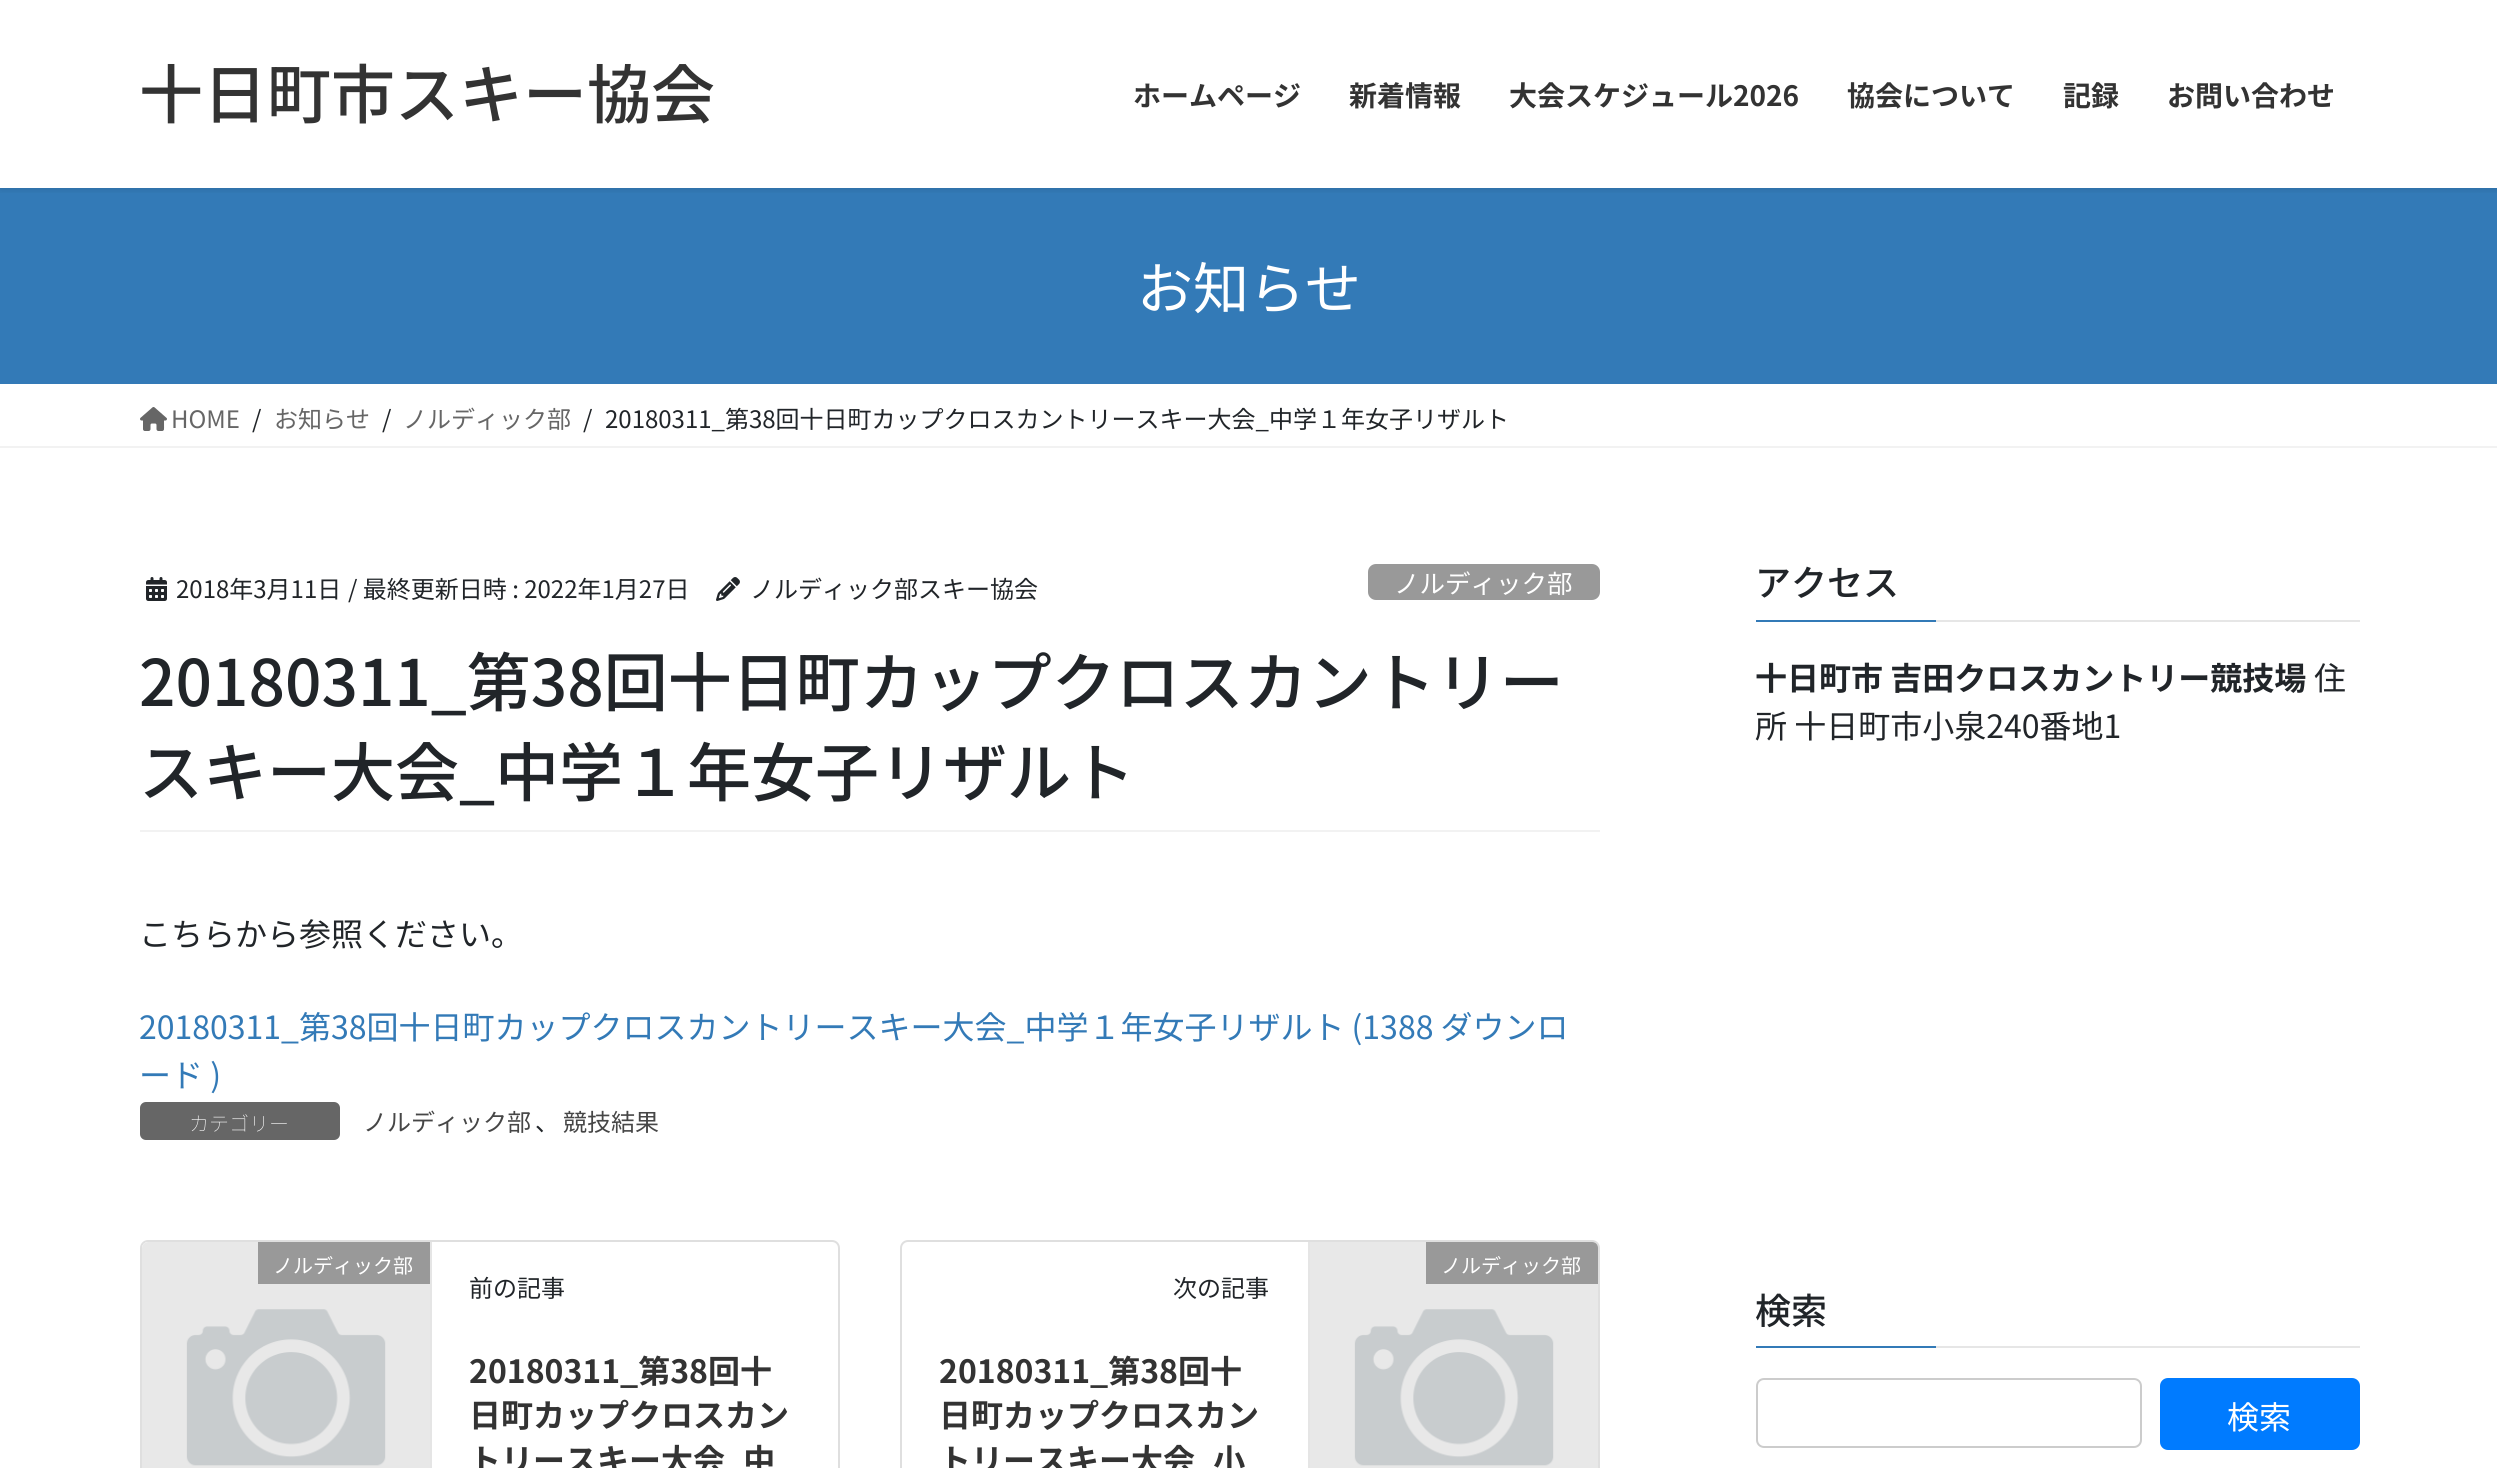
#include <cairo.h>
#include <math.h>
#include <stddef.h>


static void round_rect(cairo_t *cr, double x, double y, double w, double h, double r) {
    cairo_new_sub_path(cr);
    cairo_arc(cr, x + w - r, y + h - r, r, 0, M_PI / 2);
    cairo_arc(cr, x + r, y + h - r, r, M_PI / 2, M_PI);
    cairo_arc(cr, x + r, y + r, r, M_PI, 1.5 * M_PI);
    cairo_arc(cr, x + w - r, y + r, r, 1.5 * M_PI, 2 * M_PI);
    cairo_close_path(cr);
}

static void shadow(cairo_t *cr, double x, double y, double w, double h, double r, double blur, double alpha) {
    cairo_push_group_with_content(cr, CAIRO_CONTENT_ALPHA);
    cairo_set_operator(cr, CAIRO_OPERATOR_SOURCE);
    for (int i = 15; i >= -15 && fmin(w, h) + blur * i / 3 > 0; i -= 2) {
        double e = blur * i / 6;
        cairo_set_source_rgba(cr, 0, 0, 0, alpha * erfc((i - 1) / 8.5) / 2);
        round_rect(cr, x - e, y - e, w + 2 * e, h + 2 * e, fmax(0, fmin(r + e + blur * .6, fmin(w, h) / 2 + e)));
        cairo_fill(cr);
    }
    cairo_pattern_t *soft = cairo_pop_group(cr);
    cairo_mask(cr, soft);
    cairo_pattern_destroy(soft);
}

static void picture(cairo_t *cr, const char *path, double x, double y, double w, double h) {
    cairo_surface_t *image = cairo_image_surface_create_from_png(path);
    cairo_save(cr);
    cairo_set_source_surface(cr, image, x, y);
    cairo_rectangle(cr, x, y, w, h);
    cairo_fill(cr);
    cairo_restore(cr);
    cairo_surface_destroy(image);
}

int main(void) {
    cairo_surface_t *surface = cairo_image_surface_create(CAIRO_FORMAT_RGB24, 2497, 1468);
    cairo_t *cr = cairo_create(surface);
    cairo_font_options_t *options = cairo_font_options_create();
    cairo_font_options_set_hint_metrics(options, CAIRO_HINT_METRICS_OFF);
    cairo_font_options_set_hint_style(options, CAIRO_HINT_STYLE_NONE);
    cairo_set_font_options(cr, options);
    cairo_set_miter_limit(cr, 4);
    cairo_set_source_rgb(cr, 1, 1, 1);
    cairo_paint(cr);
    cairo_set_source_rgb(cr, 0.2, 0.478, 0.718);
    cairo_rectangle(cr, 0, 188, 2497, 196);
    cairo_fill(cr);
    cairo_save(cr);
    cairo_rectangle(cr, 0, 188, 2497, 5);
    cairo_clip(cr);
    cairo_set_source_rgb(cr, 0, 0, 0);
    shadow(cr, 0, 2, 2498, 188, 0, 3, 0.1);
    cairo_restore(cr);
    cairo_select_font_face(cr, "Noto Sans JP Medium", CAIRO_FONT_SLANT_NORMAL, CAIRO_FONT_WEIGHT_NORMAL);
    cairo_set_font_size(cr, 64);
    cairo_set_source_rgb(cr, 0.2, 0.2, 0.2);
    cairo_move_to(cr, 139, 118);
    cairo_show_text(cr, "十日町市スキー協会");
    cairo_select_font_face(cr, "Noto Sans JP", CAIRO_FONT_SLANT_NORMAL, CAIRO_FONT_WEIGHT_BOLD);
    cairo_set_font_size(cr, 28);
    cairo_move_to(cr, 1133, 106);
    cairo_show_text(cr, "ホームページ");
    cairo_move_to(cr, 1349, 106);
    cairo_show_text(cr, "新着情報");
    cairo_move_to(cr, 1509, 106);
    cairo_show_text(cr, "大会スケジュール2026");
    cairo_move_to(cr, 1847, 106);
    cairo_show_text(cr, "協会について");
    cairo_move_to(cr, 2063, 106);
    cairo_show_text(cr, "記録");
    cairo_move_to(cr, 2167, 106);
    cairo_show_text(cr, "お問い合わせ");
    cairo_select_font_face(cr, "Noto Sans JP", CAIRO_FONT_SLANT_NORMAL, CAIRO_FONT_WEIGHT_NORMAL);
    cairo_set_font_size(cr, 56);
    cairo_set_source_rgb(cr, 1, 1, 1);
    cairo_move_to(cr, 1137, 309);
    cairo_show_text(cr, "お知らせ");
    cairo_set_source_rgb(cr, 0.949, 0.949, 0.949);
    cairo_rectangle(cr, 0, 446, 2497, 2);
    cairo_fill(cr);
    picture(cr, "img1.png", 140, 407, 27, 24);
    cairo_set_font_size(cr, 24);
    cairo_set_source_rgb(cr, 0.4, 0.4, 0.4);
    cairo_move_to(cr, 171, 428);
    cairo_show_text(cr, "HOME");
    cairo_set_source_rgb(cr, 0.129, 0.145, 0.161);
    cairo_move_to(cr, 252, 428);
    cairo_show_text(cr, "/");
    cairo_set_source_rgb(cr, 0.4, 0.4, 0.4);
    cairo_move_to(cr, 274, 428);
    cairo_show_text(cr, "お知らせ");
    cairo_set_source_rgb(cr, 0.129, 0.145, 0.161);
    cairo_move_to(cr, 382, 428);
    cairo_show_text(cr, "/");
    cairo_set_source_rgb(cr, 0.4, 0.4, 0.4);
    cairo_move_to(cr, 403, 428);
    cairo_show_text(cr, "ノルディック部");
    cairo_set_source_rgb(cr, 0.129, 0.145, 0.161);
    cairo_move_to(cr, 583, 428);
    cairo_show_text(cr, "/");
    cairo_move_to(cr, 605, 428);
    cairo_show_text(cr, "20180311_第38回十日町カップクロスカントリースキー大会_中学１年女子リザルト");
    cairo_set_source_rgb(cr, 0.949, 0.949, 0.949);
    cairo_rectangle(cr, 140, 830, 1460, 2);
    cairo_fill(cr);
    picture(cr, "img2.png", 146, 577, 21, 24);
    cairo_set_source_rgb(cr, 0.129, 0.145, 0.161);
    cairo_move_to(cr, 176, 598);
    cairo_show_text(cr, "2018年3月11日");
    cairo_move_to(cr, 348, 598);
    cairo_show_text(cr, "/ 最終更新日時 : 2022年1月27日");
    picture(cr, "img3.png", 716, 577, 24, 24);
    cairo_move_to(cr, 750, 598);
    cairo_show_text(cr, "ノルディック部スキー協会");
    cairo_set_source_rgb(cr, 0.6, 0.6, 0.6);
    round_rect(cr, 1368, 564, 232, 36, 8);
    cairo_fill(cr);
    cairo_set_font_size(cr, 25.5);
    cairo_set_source_rgb(cr, 1, 1, 1);
    cairo_move_to(cr, 1394, 593);
    cairo_show_text(cr, "ノルディック部");
    cairo_select_font_face(cr, "Noto Sans JP Medium", CAIRO_FONT_SLANT_NORMAL, CAIRO_FONT_WEIGHT_NORMAL);
    cairo_set_font_size(cr, 64);
    cairo_set_source_rgb(cr, 0.129, 0.145, 0.161);
    cairo_move_to(cr, 139, 706);
    cairo_show_text(cr, "20180311_第38回十日町カップクロスカントリー");
    cairo_move_to(cr, 139, 796);
    cairo_show_text(cr, "スキー大会_中学１年女子リザルト");
    cairo_select_font_face(cr, "Noto Sans JP", CAIRO_FONT_SLANT_NORMAL, CAIRO_FONT_WEIGHT_NORMAL);
    cairo_set_font_size(cr, 32);
    cairo_move_to(cr, 139, 946);
    cairo_show_text(cr, "こちらから参照ください。");
    cairo_set_source_rgb(cr, 0.2, 0.478, 0.718);
    cairo_move_to(cr, 139, 1039);
    cairo_show_text(cr, "20180311_第38回十日町カップクロスカントリースキー大会_中学１年女子リザルト (1388 ダウンロ");
    cairo_move_to(cr, 139, 1087);
    cairo_show_text(cr, "ード )");
    cairo_set_source_rgb(cr, 0.4, 0.4, 0.4);
    round_rect(cr, 140, 1102, 200, 38, 6);
    cairo_fill(cr);
    cairo_select_font_face(cr, "Noto Sans JP Thin", CAIRO_FONT_SLANT_NORMAL, CAIRO_FONT_WEIGHT_NORMAL);
    cairo_set_font_size(cr, 20);
    cairo_set_source_rgb(cr, 1, 1, 1);
    cairo_move_to(cr, 189, 1131);
    cairo_show_text(cr, "カテゴリー");
    cairo_select_font_face(cr, "Noto Sans JP", CAIRO_FONT_SLANT_NORMAL, CAIRO_FONT_WEIGHT_NORMAL);
    cairo_set_font_size(cr, 24);
    cairo_set_source_rgb(cr, 0.275, 0.275, 0.275);
    cairo_move_to(cr, 363, 1131);
    cairo_show_text(cr, "ノルディック部");
    cairo_set_source_rgb(cr, 0.129, 0.145, 0.161);
    cairo_move_to(cr, 535, 1131);
    cairo_show_text(cr, "、");
    cairo_set_source_rgb(cr, 0.275, 0.275, 0.275);
    cairo_move_to(cr, 563, 1131);
    cairo_show_text(cr, "競技結果");
    round_rect(cr, 141, 1241, 698, 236, 7);
    cairo_set_source_rgb(cr, 0.875, 0.875, 0.875);
    cairo_stroke(cr);
    picture(cr, "img4.png", 142, 1242, 288, 226);
    cairo_set_source_rgb(cr, 0.898, 0.898, 0.898);
    cairo_rectangle(cr, 430, 1242, 2, 226);
    cairo_fill(cr);
    cairo_set_source_rgb(cr, 0.6, 0.6, 0.6);
    cairo_rectangle(cr, 258, 1242, 172, 42);
    cairo_fill(cr);
    cairo_set_font_size(cr, 20);
    cairo_set_source_rgb(cr, 1, 1, 1);
    cairo_move_to(cr, 273, 1273);
    cairo_show_text(cr, "ノルディック部");
    cairo_set_font_size(cr, 24);
    cairo_set_source_rgb(cr, 0.129, 0.145, 0.161);
    cairo_move_to(cr, 469, 1297);
    cairo_show_text(cr, "前の記事");
    cairo_select_font_face(cr, "Noto Sans JP", CAIRO_FONT_SLANT_NORMAL, CAIRO_FONT_WEIGHT_BOLD);
    cairo_set_font_size(cr, 32);
    cairo_set_source_rgb(cr, 0.2, 0.2, 0.2);
    cairo_move_to(cr, 469, 1383);
    cairo_show_text(cr, "20180311_第38回十");
    cairo_move_to(cr, 469, 1427);
    cairo_show_text(cr, "日町カップクロスカン");
    cairo_move_to(cr, 469, 1472);
    cairo_show_text(cr, "トリースキー大会_中");
    round_rect(cr, 901, 1241, 698, 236, 7);
    cairo_set_source_rgb(cr, 0.875, 0.875, 0.875);
    cairo_stroke(cr);
    picture(cr, "img5.png", 1310, 1242, 288, 226);
    cairo_set_source_rgb(cr, 0.898, 0.898, 0.898);
    cairo_rectangle(cr, 1308, 1242, 2, 226);
    cairo_fill(cr);
    cairo_set_source_rgb(cr, 0.6, 0.6, 0.6);
    cairo_new_path(cr);
    cairo_move_to(cr, 1426, 1242);
    cairo_line_to(cr, 1592, 1242);
    cairo_curve_to(cr, 1595.5, 1242, 1598, 1244.5, 1598, 1248);
    cairo_line_to(cr, 1598, 1284);
    cairo_line_to(cr, 1426, 1284);
    cairo_close_path(cr);
    cairo_fill(cr);
    cairo_select_font_face(cr, "Noto Sans JP", CAIRO_FONT_SLANT_NORMAL, CAIRO_FONT_WEIGHT_NORMAL);
    cairo_set_font_size(cr, 20);
    cairo_set_source_rgb(cr, 1, 1, 1);
    cairo_move_to(cr, 1441, 1273);
    cairo_show_text(cr, "ノルディック部");
    cairo_set_font_size(cr, 24);
    cairo_set_source_rgb(cr, 0.129, 0.145, 0.161);
    cairo_move_to(cr, 1173, 1297);
    cairo_show_text(cr, "次の記事");
    cairo_select_font_face(cr, "Noto Sans JP", CAIRO_FONT_SLANT_NORMAL, CAIRO_FONT_WEIGHT_BOLD);
    cairo_set_font_size(cr, 32);
    cairo_set_source_rgb(cr, 0.2, 0.2, 0.2);
    cairo_move_to(cr, 939, 1383);
    cairo_show_text(cr, "20180311_第38回十");
    cairo_move_to(cr, 939, 1427);
    cairo_show_text(cr, "日町カップクロスカン");
    cairo_move_to(cr, 939, 1472);
    cairo_show_text(cr, "トリースキー大会_小");
    cairo_set_source_rgb(cr, 0.902, 0.902, 0.902);
    cairo_rectangle(cr, 1936, 620, 424, 2);
    cairo_fill(cr);
    cairo_select_font_face(cr, "Noto Sans JP Medium", CAIRO_FONT_SLANT_NORMAL, CAIRO_FONT_WEIGHT_NORMAL);
    cairo_set_font_size(cr, 36);
    cairo_set_source_rgb(cr, 0.129, 0.145, 0.161);
    cairo_move_to(cr, 1755, 596);
    cairo_show_text(cr, "アクセス");
    cairo_set_source_rgb(cr, 0.2, 0.478, 0.718);
    cairo_rectangle(cr, 1756, 620, 180, 2);
    cairo_fill(cr);
    cairo_select_font_face(cr, "Noto Sans JP", CAIRO_FONT_SLANT_NORMAL, CAIRO_FONT_WEIGHT_BOLD);
    cairo_set_font_size(cr, 32);
    cairo_set_source_rgb(cr, 0.129, 0.145, 0.161);
    cairo_move_to(cr, 1755, 690);
    cairo_show_text(cr, "十日町市 吉田クロスカントリー競技場");
    cairo_select_font_face(cr, "Noto Sans JP", CAIRO_FONT_SLANT_NORMAL, CAIRO_FONT_WEIGHT_NORMAL);
    cairo_move_to(cr, 2314, 690);
    cairo_show_text(cr, "住");
    cairo_move_to(cr, 1755, 738);
    cairo_show_text(cr, "所 十日町市小泉240番地1");
    cairo_set_source_rgb(cr, 0.902, 0.902, 0.902);
    cairo_rectangle(cr, 1936, 1346, 424, 2);
    cairo_fill(cr);
    cairo_select_font_face(cr, "Noto Sans JP Medium", CAIRO_FONT_SLANT_NORMAL, CAIRO_FONT_WEIGHT_NORMAL);
    cairo_set_font_size(cr, 36);
    cairo_set_source_rgb(cr, 0.129, 0.145, 0.161);
    cairo_move_to(cr, 1755, 1324);
    cairo_show_text(cr, "検索");
    cairo_set_source_rgb(cr, 0.2, 0.478, 0.718);
    cairo_rectangle(cr, 1756, 1346, 180, 2);
    cairo_fill(cr);
    round_rect(cr, 1757, 1379, 384, 68, 7);
    cairo_set_source_rgb(cr, 0.8, 0.8, 0.8);
    cairo_stroke(cr);
    cairo_set_source_rgb(cr, 0, 0.482, 1);
    round_rect(cr, 2160, 1378, 200, 72, 8);
    cairo_fill(cr);
    cairo_select_font_face(cr, "Noto Sans JP", CAIRO_FONT_SLANT_NORMAL, CAIRO_FONT_WEIGHT_NORMAL);
    cairo_set_font_size(cr, 32);
    cairo_set_source_rgb(cr, 1, 1, 1);
    cairo_move_to(cr, 2227, 1429);
    cairo_show_text(cr, "検索");
    cairo_surface_write_to_png(surface, "page.png");
    cairo_font_options_destroy(options);
    cairo_destroy(cr);
    cairo_surface_destroy(surface);
    return 0;
}
